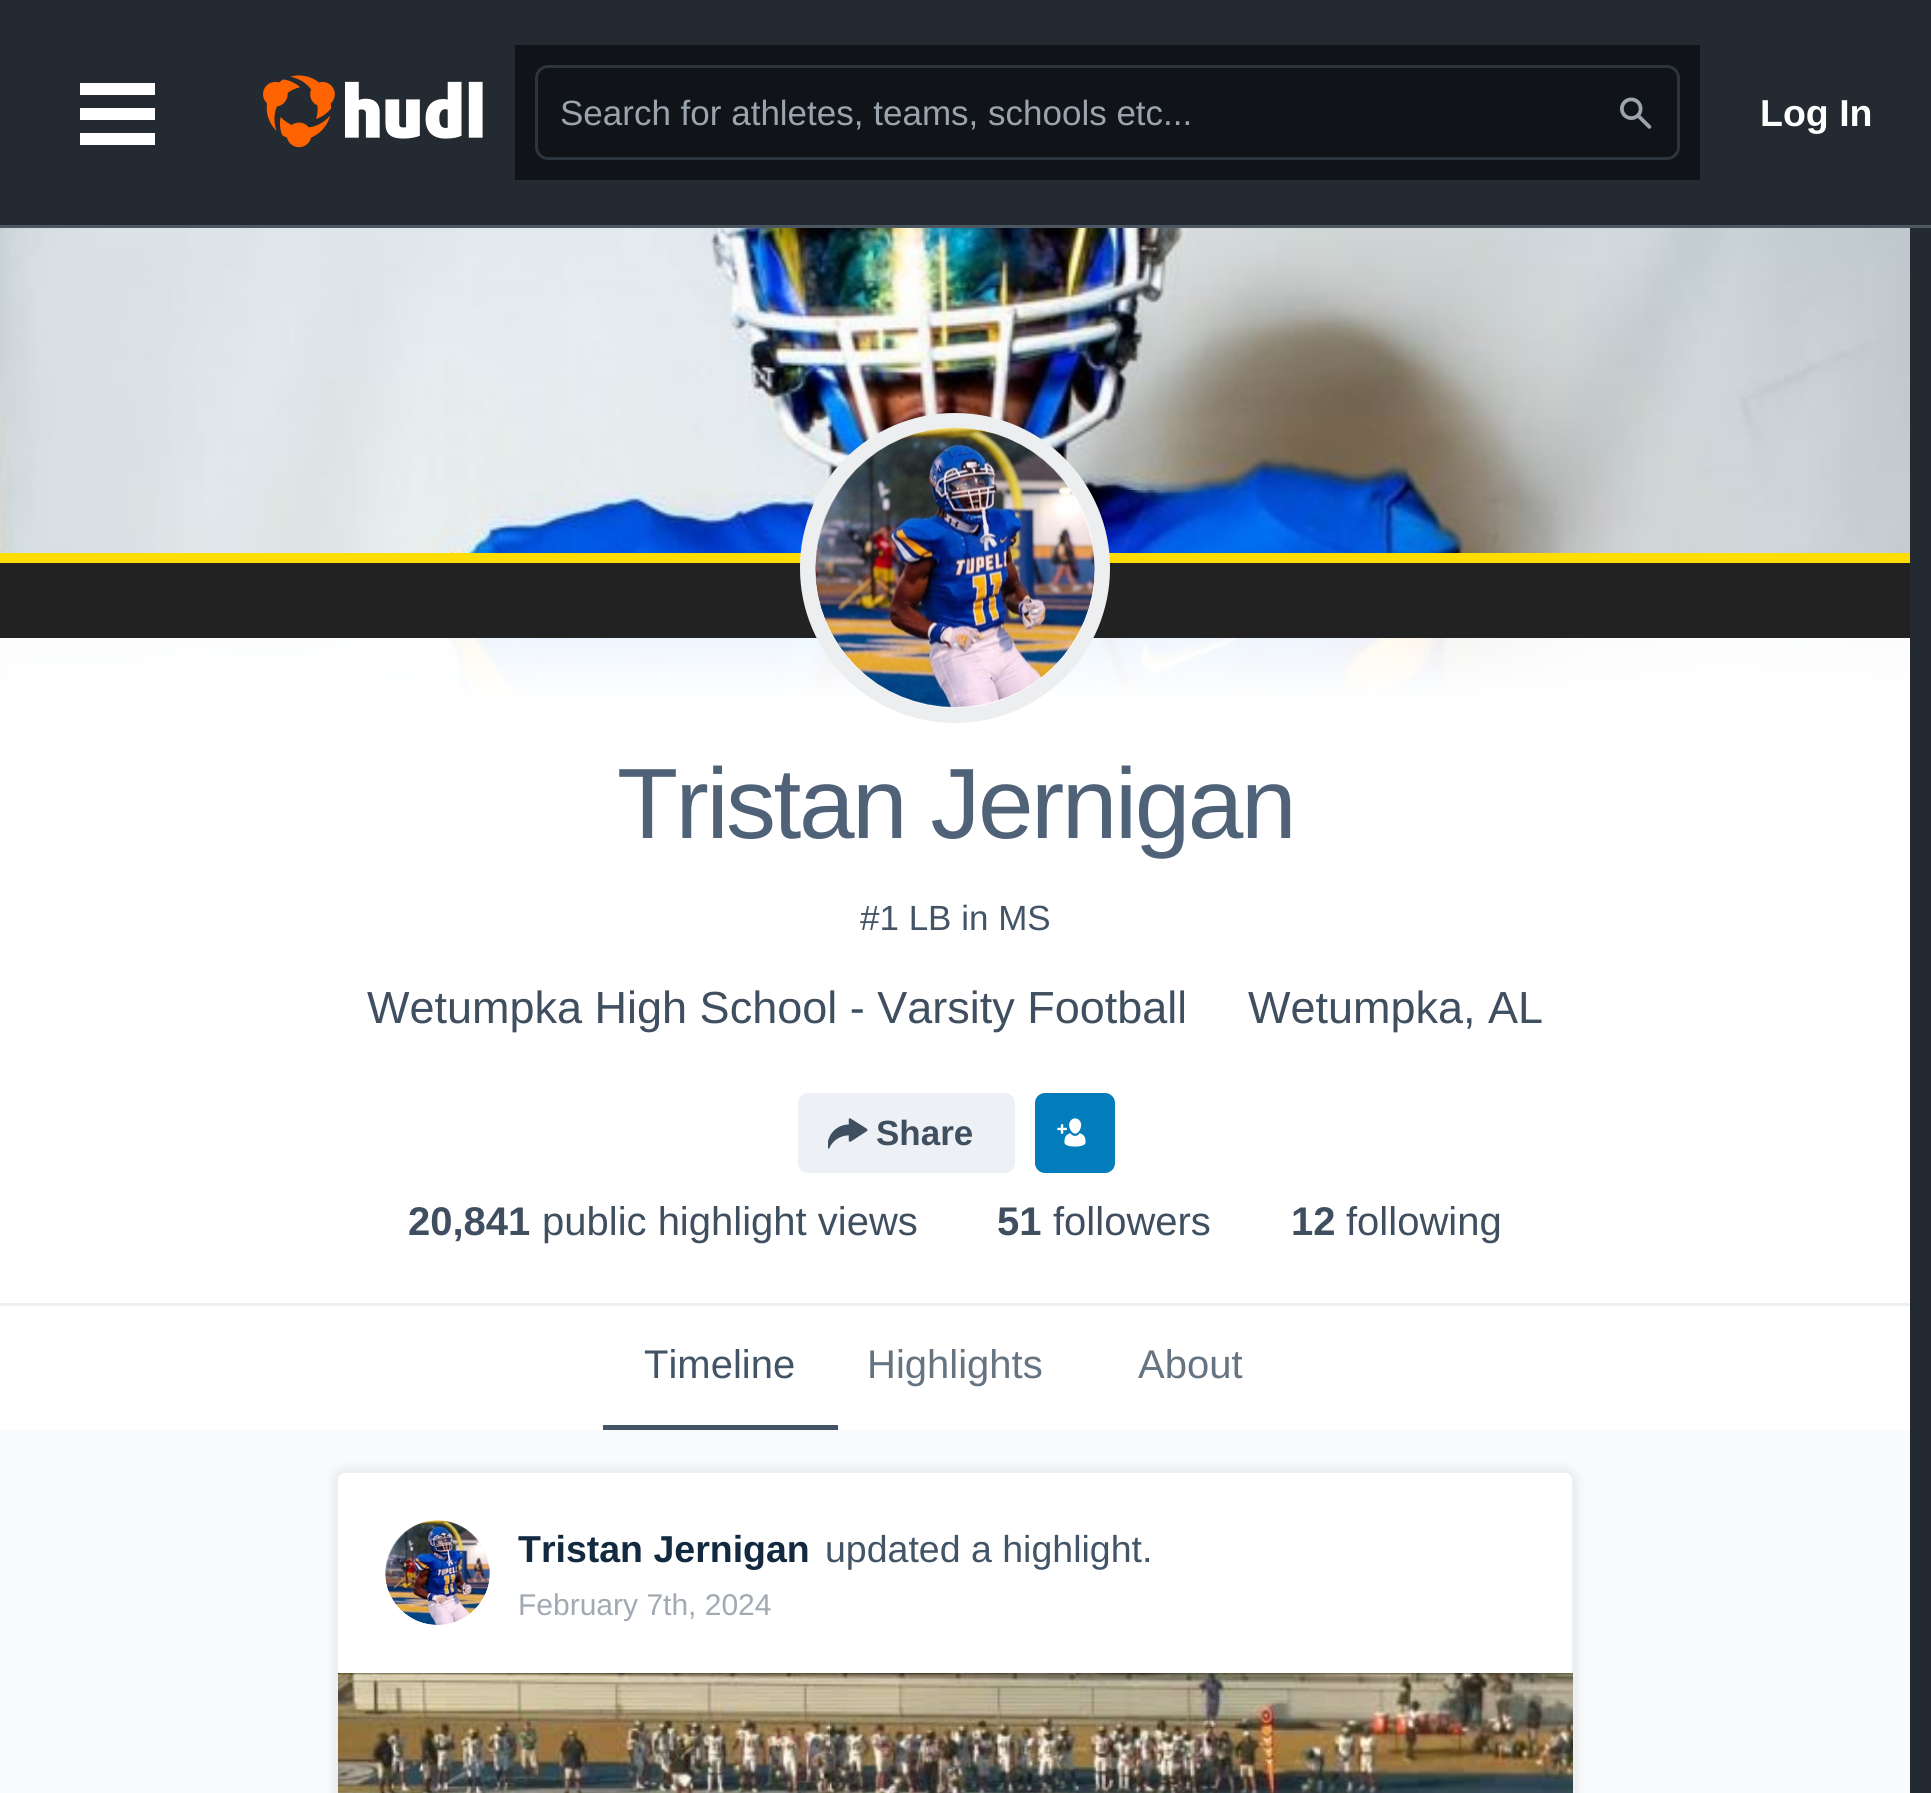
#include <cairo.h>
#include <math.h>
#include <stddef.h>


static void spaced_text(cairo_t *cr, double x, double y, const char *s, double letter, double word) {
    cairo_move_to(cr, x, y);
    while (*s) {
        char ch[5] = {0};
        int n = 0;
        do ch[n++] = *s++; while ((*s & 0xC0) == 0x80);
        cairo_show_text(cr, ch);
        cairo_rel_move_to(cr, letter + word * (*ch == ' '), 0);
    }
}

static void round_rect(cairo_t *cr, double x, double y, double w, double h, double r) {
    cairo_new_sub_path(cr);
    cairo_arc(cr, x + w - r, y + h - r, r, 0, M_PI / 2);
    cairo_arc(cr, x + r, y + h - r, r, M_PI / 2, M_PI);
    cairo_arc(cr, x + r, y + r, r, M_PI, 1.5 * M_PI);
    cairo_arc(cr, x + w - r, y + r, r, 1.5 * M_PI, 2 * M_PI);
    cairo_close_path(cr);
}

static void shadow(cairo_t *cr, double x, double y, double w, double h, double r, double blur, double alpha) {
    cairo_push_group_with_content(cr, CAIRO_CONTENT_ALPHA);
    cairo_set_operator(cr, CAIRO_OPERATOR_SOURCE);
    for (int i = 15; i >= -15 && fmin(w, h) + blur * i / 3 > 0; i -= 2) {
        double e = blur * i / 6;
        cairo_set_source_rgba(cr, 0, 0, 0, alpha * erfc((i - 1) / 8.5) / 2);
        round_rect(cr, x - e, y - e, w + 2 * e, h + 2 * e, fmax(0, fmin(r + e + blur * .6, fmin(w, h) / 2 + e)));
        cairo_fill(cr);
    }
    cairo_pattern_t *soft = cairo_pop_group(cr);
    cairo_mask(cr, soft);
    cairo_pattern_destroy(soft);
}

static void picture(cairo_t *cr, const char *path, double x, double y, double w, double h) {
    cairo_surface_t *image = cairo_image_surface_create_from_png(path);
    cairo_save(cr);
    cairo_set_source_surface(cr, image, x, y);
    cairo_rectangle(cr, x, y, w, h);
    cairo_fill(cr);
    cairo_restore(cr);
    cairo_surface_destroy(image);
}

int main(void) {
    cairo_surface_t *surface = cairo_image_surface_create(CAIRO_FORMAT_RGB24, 1931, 1793);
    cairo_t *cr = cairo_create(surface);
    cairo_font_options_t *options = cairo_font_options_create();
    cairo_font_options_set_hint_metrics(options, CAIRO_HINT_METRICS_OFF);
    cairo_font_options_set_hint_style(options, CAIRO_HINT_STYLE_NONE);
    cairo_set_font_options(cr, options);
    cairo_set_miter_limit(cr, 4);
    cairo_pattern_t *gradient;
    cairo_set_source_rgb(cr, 0.137, 0.165, 0.192);
    cairo_paint(cr);
    cairo_set_source_rgb(cr, 0.298, 0.341, 0.38);
    cairo_rectangle(cr, 0, 225, 1931, 3);
    cairo_fill(cr);
    cairo_set_source_rgb(cr, 1, 1, 1);
    cairo_rectangle(cr, 80, 83, 75, 12);
    cairo_fill(cr);
    cairo_rectangle(cr, 80, 108, 75, 12);
    cairo_fill(cr);
    cairo_rectangle(cr, 80, 133, 75, 12);
    cairo_fill(cr);
    picture(cr, "img1.png", 263, 75, 220, 73);
    cairo_set_source_rgb(cr, 0.063, 0.078, 0.09);
    cairo_rectangle(cr, 515, 45, 1185, 135);
    cairo_fill(cr);
    round_rect(cr, 536.5, 66.5, 1142, 92, 11.5);
    cairo_set_source_rgb(cr, 0.173, 0.208, 0.243);
    cairo_set_line_width(cr, 3);
    cairo_stroke(cr);
    cairo_select_font_face(cr, "Liberation Sans", CAIRO_FONT_SLANT_NORMAL, CAIRO_FONT_WEIGHT_NORMAL);
    cairo_set_font_size(cr, 35);
    cairo_set_source_rgb(cr, 0.608, 0.643, 0.682);
    cairo_move_to(cr, 560, 125);
    cairo_show_text(cr, "Search for athletes, teams, schools etc...");
    picture(cr, "img2.png", 1620, 97, 32, 32);
    cairo_select_font_face(cr, "Liberation Sans", CAIRO_FONT_SLANT_NORMAL, CAIRO_FONT_WEIGHT_BOLD);
    cairo_set_font_size(cr, 37.5);
    cairo_set_source_rgb(cr, 1, 1, 1);
    cairo_move_to(cr, 1760, 126);
    cairo_show_text(cr, "Log In");
    picture(cr, "img3.png", 0, 228, 1910, 468);
    gradient = cairo_pattern_create_linear(955, 552, 955, 1303);
    cairo_pattern_add_color_stop_rgba(gradient, 0, 1, 1, 1, 0.85);
    cairo_pattern_add_color_stop_rgba(gradient, 0.2, 1, 1, 1, 1);
    cairo_set_source(cr, gradient);
    cairo_pattern_destroy(gradient);
    cairo_rectangle(cr, 0, 638, 1910, 665);
    cairo_fill(cr);
    cairo_set_source_rgb(cr, 0.929, 0.941, 0.949);
    cairo_rectangle(cr, 0, 1303, 1910, 3);
    cairo_fill(cr);
    cairo_set_source_rgb(cr, 1, 0.867, 0);
    cairo_rectangle(cr, 0, 553, 1910, 10);
    cairo_fill(cr);
    cairo_set_source_rgb(cr, 0.133, 0.133, 0.133);
    cairo_rectangle(cr, 0, 563, 1910, 75);
    cairo_fill(cr);
    cairo_set_source_rgb(cr, 1, 1, 1);
    cairo_arc(cr, 955, 568, 155, 0, 2 * M_PI);
    cairo_fill(cr);
    cairo_arc(cr, 955, 568, 147.5, 0, 2 * M_PI);
    cairo_set_source_rgba(cr, 0.271, 0.322, 0.369, 0.1);
    cairo_set_line_width(cr, 15);
    cairo_stroke(cr);
    picture(cr, "img4.png", 815, 427, 280, 281);
    cairo_select_font_face(cr, "Liberation Sans", CAIRO_FONT_SLANT_NORMAL, CAIRO_FONT_WEIGHT_NORMAL);
    cairo_set_font_size(cr, 100);
    cairo_set_source_rgb(cr, 0.314, 0.384, 0.467);
    spaced_text(cr, 617, 838, "Tristan Jernigan", -2.5, 0);
    cairo_set_font_size(cr, 35);
    cairo_set_source_rgb(cr, 0.259, 0.329, 0.396);
    cairo_move_to(cr, 860, 930);
    cairo_show_text(cr, "#1 LB in MS");
    cairo_set_font_size(cr, 45);
    cairo_set_source_rgb(cr, 0.247, 0.31, 0.373);
    cairo_move_to(cr, 367, 1023);
    cairo_show_text(cr, "Wetumpka High School - Varsity Football");
    cairo_move_to(cr, 1248, 1023);
    cairo_show_text(cr, "Wetumpka, AL");
    cairo_set_source_rgb(cr, 0.929, 0.945, 0.961);
    round_rect(cr, 798, 1093, 217, 80, 10);
    cairo_fill(cr);
    picture(cr, "img5.png", 828, 1118, 40, 31);
    cairo_select_font_face(cr, "Liberation Sans", CAIRO_FONT_SLANT_NORMAL, CAIRO_FONT_WEIGHT_BOLD);
    cairo_set_font_size(cr, 35);
    cairo_set_source_rgb(cr, 0.247, 0.31, 0.373);
    cairo_move_to(cr, 876, 1145);
    cairo_show_text(cr, "Share");
    cairo_set_source_rgb(cr, 0.008, 0.49, 0.733);
    round_rect(cr, 1035, 1093, 80, 80, 10);
    cairo_fill(cr);
    picture(cr, "img6.png", 1057, 1118, 29, 29);
    cairo_set_font_size(cr, 40);
    cairo_set_source_rgb(cr, 0.247, 0.31, 0.373);
    cairo_move_to(cr, 408, 1235);
    cairo_show_text(cr, "20,841");
    cairo_select_font_face(cr, "Liberation Sans", CAIRO_FONT_SLANT_NORMAL, CAIRO_FONT_WEIGHT_NORMAL);
    cairo_move_to(cr, 542, 1235);
    cairo_show_text(cr, "public highlight views");
    cairo_select_font_face(cr, "Liberation Sans", CAIRO_FONT_SLANT_NORMAL, CAIRO_FONT_WEIGHT_BOLD);
    cairo_move_to(cr, 997, 1235);
    cairo_show_text(cr, "51");
    cairo_select_font_face(cr, "Liberation Sans", CAIRO_FONT_SLANT_NORMAL, CAIRO_FONT_WEIGHT_NORMAL);
    cairo_move_to(cr, 1053, 1235);
    cairo_show_text(cr, "followers");
    cairo_select_font_face(cr, "Liberation Sans", CAIRO_FONT_SLANT_NORMAL, CAIRO_FONT_WEIGHT_BOLD);
    cairo_move_to(cr, 1291, 1235);
    cairo_show_text(cr, "12");
    cairo_select_font_face(cr, "Liberation Sans", CAIRO_FONT_SLANT_NORMAL, CAIRO_FONT_WEIGHT_NORMAL);
    cairo_move_to(cr, 1346, 1235);
    cairo_show_text(cr, "following");
    cairo_set_source_rgb(cr, 1, 1, 1);
    cairo_rectangle(cr, 0, 1306, 1910, 124);
    cairo_fill(cr);
    cairo_set_source_rgb(cr, 0.259, 0.329, 0.396);
    cairo_rectangle(cr, 603, 1425, 235, 5);
    cairo_fill(cr);
    cairo_move_to(cr, 644, 1378);
    cairo_show_text(cr, "Timeline");
    cairo_set_source_rgb(cr, 0.4, 0.455, 0.51);
    cairo_move_to(cr, 867, 1378);
    cairo_show_text(cr, "Highlights");
    cairo_move_to(cr, 1138, 1378);
    cairo_show_text(cr, "About");
    cairo_set_source_rgb(cr, 0.976, 0.98, 0.984);
    cairo_rectangle(cr, 0, 1430, 1910, 363);
    cairo_fill(cr);
    cairo_set_source_rgb(cr, 0, 0, 0);
    shadow(cr, 335, 1470, 1240, 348, 10, 5, 0.1);
    cairo_set_source_rgb(cr, 1, 1, 1);
    cairo_new_path(cr);
    cairo_move_to(cr, 345, 1470);
    cairo_line_to(cr, 1565, 1470);
    cairo_curve_to(cr, 1570.5, 1470, 1575, 1474.5, 1575, 1480);
    cairo_line_to(cr, 1575, 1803);
    cairo_line_to(cr, 335, 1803);
    cairo_line_to(cr, 335, 1480);
    cairo_curve_to(cr, 335, 1474.5, 339.5, 1470, 345, 1470);
    cairo_close_path(cr);
    cairo_fill(cr);
    round_rect(cr, 336.5, 1471.5, 1237, 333, 8.5);
    cairo_set_source_rgb(cr, 0.929, 0.941, 0.949);
    cairo_set_line_width(cr, 3);
    cairo_stroke(cr);
    picture(cr, "img7.png", 385, 1520, 105, 105);
    cairo_select_font_face(cr, "Liberation Sans", CAIRO_FONT_SLANT_NORMAL, CAIRO_FONT_WEIGHT_BOLD);
    cairo_set_font_size(cr, 37.5);
    cairo_set_source_rgb(cr, 0.075, 0.161, 0.247);
    cairo_move_to(cr, 518, 1562);
    cairo_show_text(cr, "Tristan Jernigan");
    cairo_select_font_face(cr, "Liberation Sans", CAIRO_FONT_SLANT_NORMAL, CAIRO_FONT_WEIGHT_NORMAL);
    cairo_set_source_rgb(cr, 0.259, 0.329, 0.396);
    cairo_move_to(cr, 825, 1562);
    cairo_show_text(cr, "updated a highlight.");
    cairo_set_font_size(cr, 30);
    cairo_set_source_rgb(cr, 0.631, 0.663, 0.698);
    cairo_move_to(cr, 518, 1615);
    cairo_show_text(cr, "February 7th, 2024");
    picture(cr, "img8.png", 338, 1673, 1235, 120);
    cairo_surface_write_to_png(surface, "page.png");
    cairo_font_options_destroy(options);
    cairo_destroy(cr);
    cairo_surface_destroy(surface);
    return 0;
}
